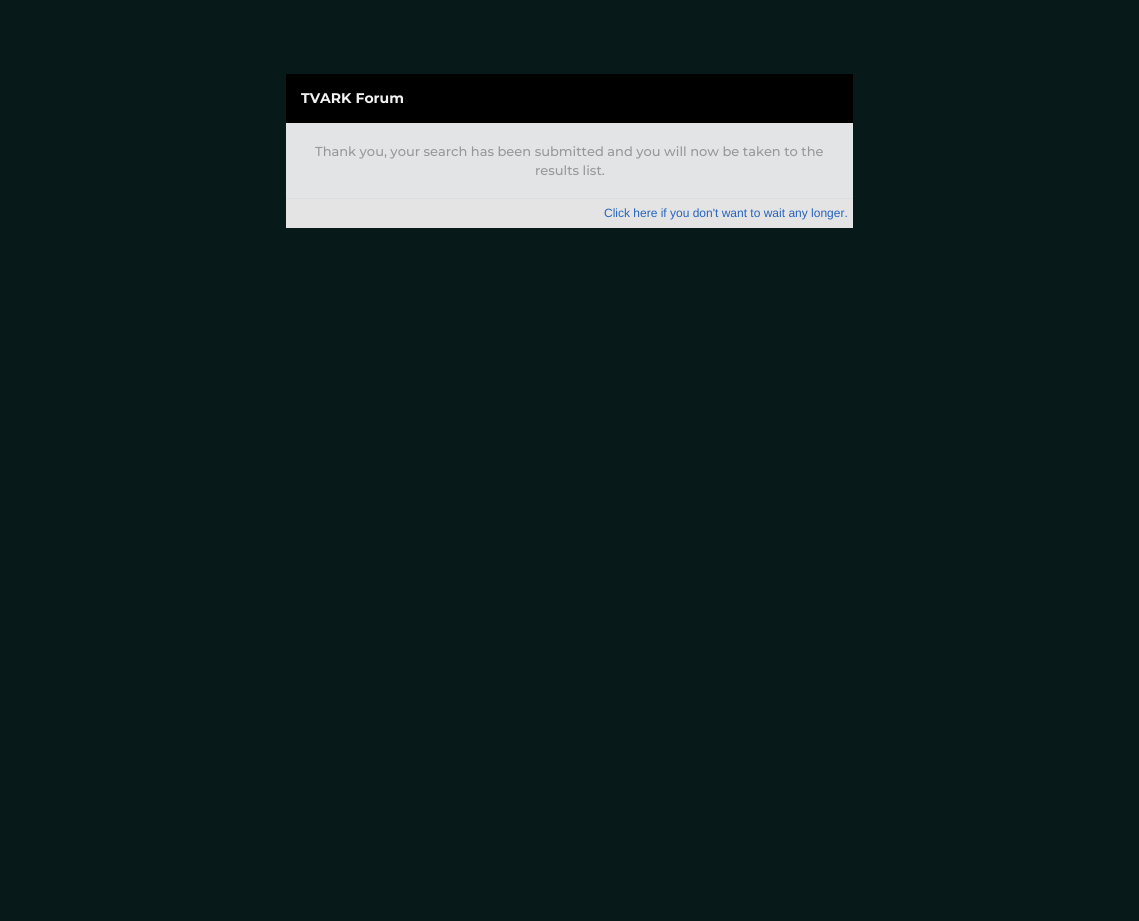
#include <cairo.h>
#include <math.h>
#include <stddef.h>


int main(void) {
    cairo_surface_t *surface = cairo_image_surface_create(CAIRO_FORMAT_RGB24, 1139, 921);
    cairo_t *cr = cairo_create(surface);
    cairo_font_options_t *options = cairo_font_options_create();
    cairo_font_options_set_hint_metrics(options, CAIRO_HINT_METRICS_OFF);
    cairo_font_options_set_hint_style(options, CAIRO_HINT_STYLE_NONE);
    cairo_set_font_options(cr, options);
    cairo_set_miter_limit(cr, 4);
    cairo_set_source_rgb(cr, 0.035, 0.098, 0.098);
    cairo_paint(cr);
    cairo_set_source_rgb(cr, 0, 0, 0);
    cairo_rectangle(cr, 286, 74, 567, 49);
    cairo_fill(cr);
    cairo_select_font_face(cr, "Montserrat", CAIRO_FONT_SLANT_NORMAL, CAIRO_FONT_WEIGHT_BOLD);
    cairo_set_font_size(cr, 14);
    cairo_set_source_rgb(cr, 0.945, 0.949, 0.945);
    cairo_move_to(cr, 301, 103);
    cairo_show_text(cr, "TVARK Forum");
    cairo_set_source_rgb(cr, 0.886, 0.894, 0.898);
    cairo_rectangle(cr, 286, 123, 567, 75);
    cairo_fill(cr);
    cairo_set_source_rgb(cr, 0.859, 0.867, 0.875);
    cairo_rectangle(cr, 286, 198, 567, 1);
    cairo_fill(cr);
    cairo_select_font_face(cr, "Montserrat Medium", CAIRO_FONT_SLANT_NORMAL, CAIRO_FONT_WEIGHT_NORMAL);
    cairo_set_font_size(cr, 13);
    cairo_set_source_rgb(cr, 0.592, 0.6, 0.6);
    cairo_move_to(cr, 315, 156);
    cairo_show_text(cr, "Thank you, your search has been submitted and you will now be taken to the");
    cairo_move_to(cr, 535, 175);
    cairo_show_text(cr, "results list.");
    cairo_set_source_rgb(cr, 0.894, 0.894, 0.894);
    cairo_rectangle(cr, 286, 199, 567, 29);
    cairo_fill(cr);
    cairo_select_font_face(cr, "Liberation Sans", CAIRO_FONT_SLANT_NORMAL, CAIRO_FONT_WEIGHT_NORMAL);
    cairo_set_font_size(cr, 12);
    cairo_set_source_rgb(cr, 0.149, 0.388, 0.741);
    cairo_move_to(cr, 604, 217);
    cairo_show_text(cr, "Click here if you don't want to wait any longer.");
    cairo_surface_write_to_png(surface, "page.png");
    cairo_font_options_destroy(options);
    cairo_destroy(cr);
    cairo_surface_destroy(surface);
    return 0;
}
